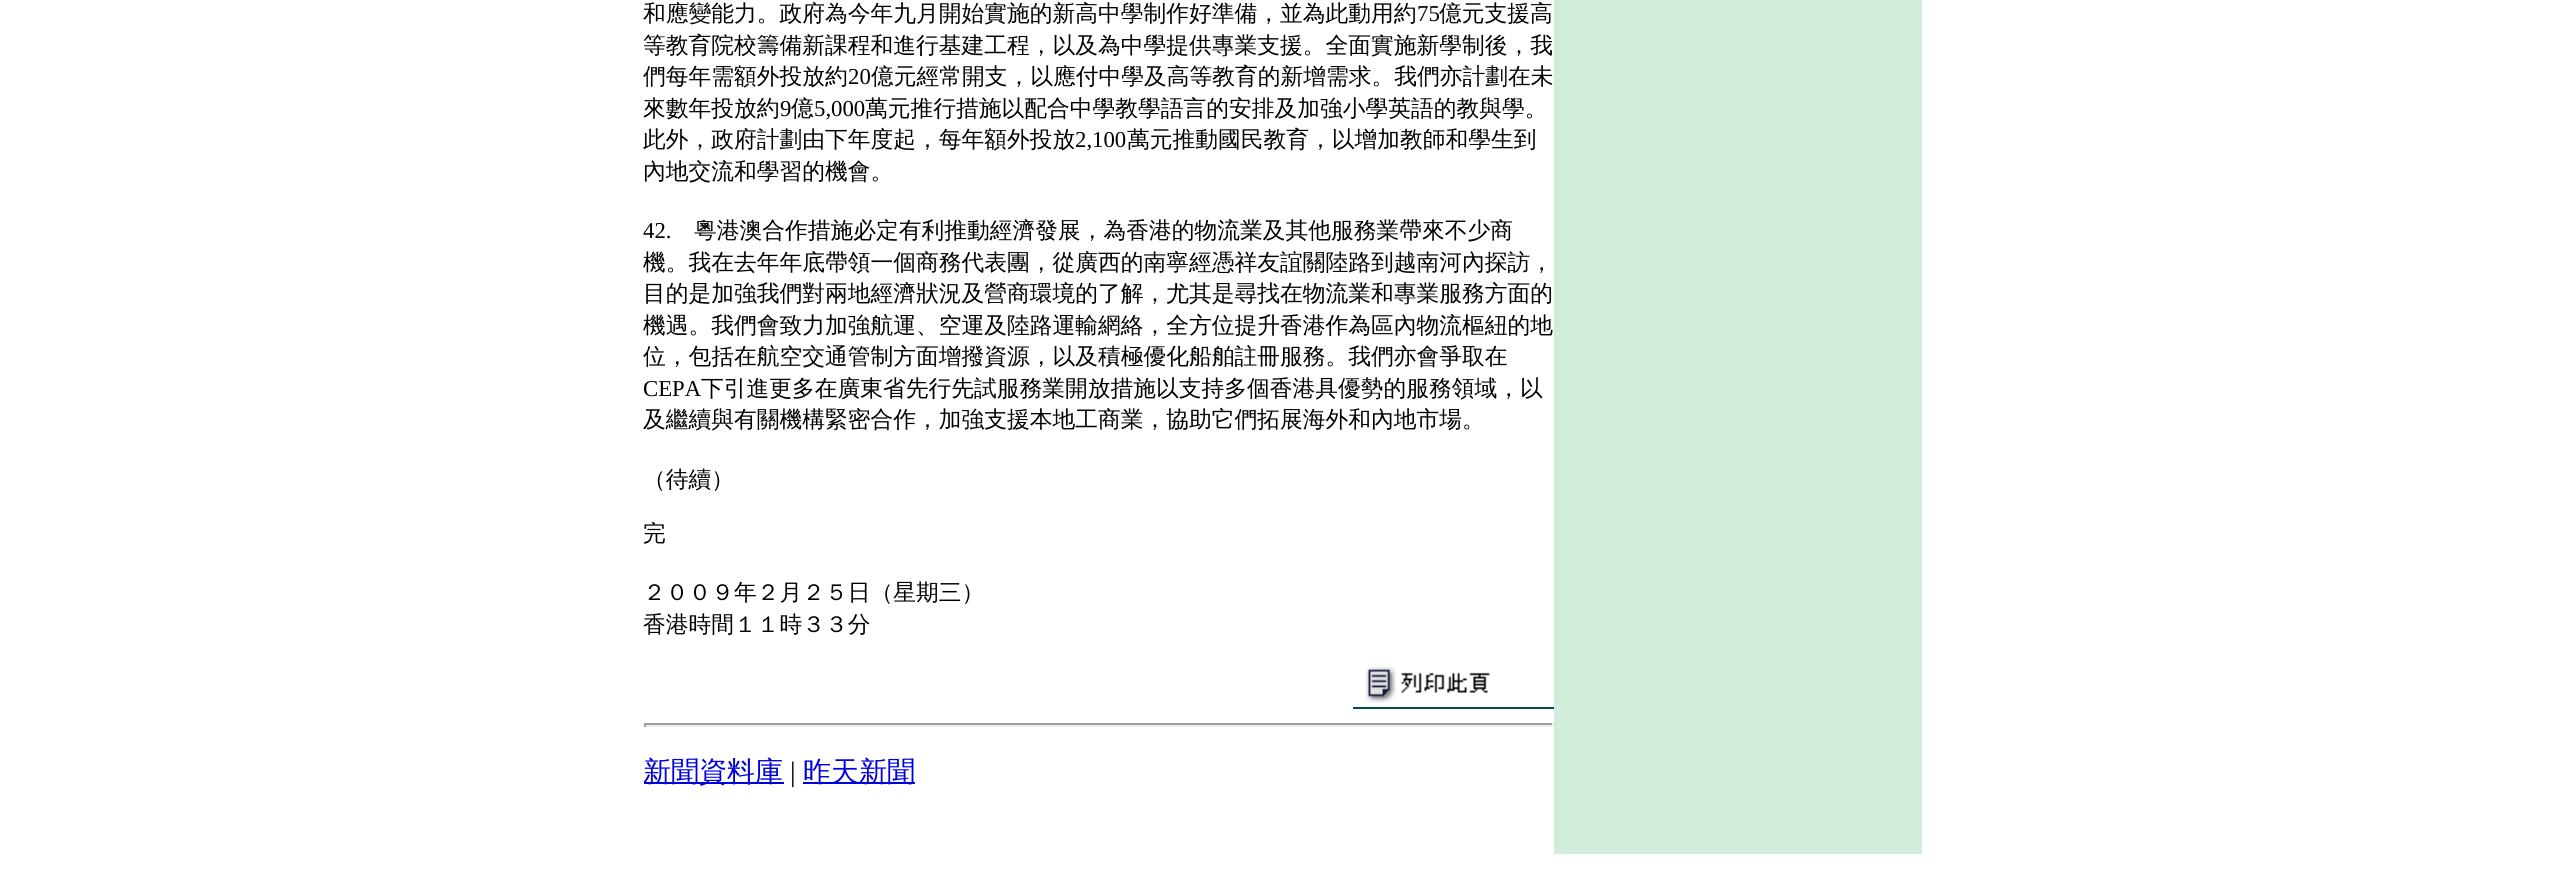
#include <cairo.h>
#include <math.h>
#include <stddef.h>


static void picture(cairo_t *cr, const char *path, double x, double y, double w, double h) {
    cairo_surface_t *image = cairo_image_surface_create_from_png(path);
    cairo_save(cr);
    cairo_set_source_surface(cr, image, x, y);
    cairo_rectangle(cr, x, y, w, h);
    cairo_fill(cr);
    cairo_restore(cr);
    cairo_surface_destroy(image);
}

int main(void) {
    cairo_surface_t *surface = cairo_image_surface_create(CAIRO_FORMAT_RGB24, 2563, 884);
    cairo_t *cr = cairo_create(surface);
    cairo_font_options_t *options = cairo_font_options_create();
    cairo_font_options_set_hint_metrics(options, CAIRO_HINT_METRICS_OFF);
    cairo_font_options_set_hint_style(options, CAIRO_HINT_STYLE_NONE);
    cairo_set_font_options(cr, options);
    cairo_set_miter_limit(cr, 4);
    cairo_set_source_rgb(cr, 1, 1, 1);
    cairo_paint(cr);
    cairo_set_source_rgb(cr, 0.82, 0.925, 0.855);
    cairo_rectangle(cr, 1554, 0, 368, 854);
    cairo_fill(cr);
    cairo_select_font_face(cr, "WenQuanYi Zen Hei Medium", CAIRO_FONT_SLANT_NORMAL, CAIRO_FONT_WEIGHT_NORMAL);
    cairo_set_font_size(cr, 22.75);
    cairo_set_source_rgb(cr, 0, 0, 0);
    cairo_move_to(cr, 643, 21);
    cairo_show_text(cr, "和應變能力。政府為今年九月開始實施的新高中學制作好準備，並為此動用約");
    cairo_select_font_face(cr, "Liberation Serif", CAIRO_FONT_SLANT_NORMAL, CAIRO_FONT_WEIGHT_NORMAL);
    cairo_move_to(cr, 1417, 21);
    cairo_show_text(cr, "75");
    cairo_select_font_face(cr, "WenQuanYi Zen Hei Medium", CAIRO_FONT_SLANT_NORMAL, CAIRO_FONT_WEIGHT_NORMAL);
    cairo_move_to(cr, 1439, 21);
    cairo_show_text(cr, "億元支援高");
    cairo_move_to(cr, 643, 53);
    cairo_show_text(cr, "等教育院校籌備新課程和進行基建工程，以及為中學提供專業支援。全面實施新學制後，我");
    cairo_move_to(cr, 643, 84);
    cairo_show_text(cr, "們每年需額外投放約");
    cairo_select_font_face(cr, "Liberation Serif", CAIRO_FONT_SLANT_NORMAL, CAIRO_FONT_WEIGHT_NORMAL);
    cairo_move_to(cr, 848, 84);
    cairo_show_text(cr, "20");
    cairo_select_font_face(cr, "WenQuanYi Zen Hei Medium", CAIRO_FONT_SLANT_NORMAL, CAIRO_FONT_WEIGHT_NORMAL);
    cairo_move_to(cr, 871, 84);
    cairo_show_text(cr, "億元經常開支，以應付中學及高等教育的新增需求。我們亦計劃在未");
    cairo_move_to(cr, 643, 116);
    cairo_show_text(cr, "來數年投放約");
    cairo_select_font_face(cr, "Liberation Serif", CAIRO_FONT_SLANT_NORMAL, CAIRO_FONT_WEIGHT_NORMAL);
    cairo_move_to(cr, 780, 116);
    cairo_show_text(cr, "9");
    cairo_select_font_face(cr, "WenQuanYi Zen Hei Medium", CAIRO_FONT_SLANT_NORMAL, CAIRO_FONT_WEIGHT_NORMAL);
    cairo_move_to(cr, 791, 116);
    cairo_show_text(cr, "億");
    cairo_select_font_face(cr, "Liberation Serif", CAIRO_FONT_SLANT_NORMAL, CAIRO_FONT_WEIGHT_NORMAL);
    cairo_move_to(cr, 814, 116);
    cairo_show_text(cr, "5,000");
    cairo_select_font_face(cr, "WenQuanYi Zen Hei Medium", CAIRO_FONT_SLANT_NORMAL, CAIRO_FONT_WEIGHT_NORMAL);
    cairo_move_to(cr, 865, 116);
    cairo_show_text(cr, "萬元推行措施以配合中學教學語言的安排及加強小學英語的教與學。");
    cairo_move_to(cr, 643, 147);
    cairo_show_text(cr, "此外，政府計劃由下年度起，每年額外投放");
    cairo_select_font_face(cr, "Liberation Serif", CAIRO_FONT_SLANT_NORMAL, CAIRO_FONT_WEIGHT_NORMAL);
    cairo_move_to(cr, 1075, 147);
    cairo_show_text(cr, "2,100");
    cairo_select_font_face(cr, "WenQuanYi Zen Hei Medium", CAIRO_FONT_SLANT_NORMAL, CAIRO_FONT_WEIGHT_NORMAL);
    cairo_move_to(cr, 1127, 147);
    cairo_show_text(cr, "萬元推動國民教育，以增加教師和學生到");
    cairo_move_to(cr, 643, 179);
    cairo_show_text(cr, "內地交流和學習的機會。");
    cairo_select_font_face(cr, "Liberation Serif", CAIRO_FONT_SLANT_NORMAL, CAIRO_FONT_WEIGHT_NORMAL);
    cairo_move_to(cr, 643, 238);
    cairo_show_text(cr, "42.");
    cairo_select_font_face(cr, "WenQuanYi Zen Hei Medium", CAIRO_FONT_SLANT_NORMAL, CAIRO_FONT_WEIGHT_NORMAL);
    cairo_move_to(cr, 694, 238);
    cairo_show_text(cr, "粵港澳合作措施必定有利推動經濟發展，為香港的物流業及其他服務業帶來不少商");
    cairo_move_to(cr, 643, 270);
    cairo_show_text(cr, "機。我在去年年底帶領一個商務代表團，從廣西的南寧經憑祥友誼關陸路到越南河內探訪，");
    cairo_move_to(cr, 643, 301);
    cairo_show_text(cr, "目的是加強我們對兩地經濟狀況及營商環境的了解，尤其是尋找在物流業和專業服務方面的");
    cairo_move_to(cr, 643, 333);
    cairo_show_text(cr, "機遇。我們會致力加強航運、空運及陸路運輸網絡，全方位提升香港作為區內物流樞紐的地");
    cairo_move_to(cr, 643, 364);
    cairo_show_text(cr, "位，包括在航空交通管制方面增撥資源，以及積極優化船舶註冊服務。我們亦會爭取在");
    cairo_select_font_face(cr, "Liberation Serif", CAIRO_FONT_SLANT_NORMAL, CAIRO_FONT_WEIGHT_NORMAL);
    cairo_move_to(cr, 643, 396);
    cairo_show_text(cr, "CEPA");
    cairo_select_font_face(cr, "WenQuanYi Zen Hei Medium", CAIRO_FONT_SLANT_NORMAL, CAIRO_FONT_WEIGHT_NORMAL);
    cairo_move_to(cr, 701, 396);
    cairo_show_text(cr, "下引進更多在廣東省先行先試服務業開放措施以支持多個香港具優勢的服務領域，以");
    cairo_move_to(cr, 643, 427);
    cairo_show_text(cr, "及繼續與有關機構緊密合作，加強支援本地工商業，協助它們拓展海外和內地市場。");
    cairo_move_to(cr, 643, 487);
    cairo_show_text(cr, "（待續）");
    cairo_move_to(cr, 643, 541);
    cairo_show_text(cr, "完");
    cairo_move_to(cr, 643, 600);
    cairo_show_text(cr, "２００９年２月２５日（星期三）");
    cairo_move_to(cr, 643, 632);
    cairo_show_text(cr, "香港時間１１時３３分");
    picture(cr, "img1.png", 1365, 666, 125, 37);
    cairo_set_source_rgb(cr, 0, 0.31, 0.306);
    cairo_rectangle(cr, 1353, 707, 201, 2);
    cairo_fill(cr);
    cairo_set_source_rgb(cr, 0.624, 0.624, 0.624);
    cairo_rectangle(cr, 644, 723, 910, 2);
    cairo_fill(cr);
    cairo_set_source_rgb(cr, 0.933, 0.933, 0.933);
    cairo_rectangle(cr, 1552, 723, 2, 4);
    cairo_fill(cr);
    cairo_rectangle(cr, 644, 725, 910, 2);
    cairo_fill(cr);
    cairo_set_source_rgb(cr, 0.624, 0.624, 0.624);
    cairo_rectangle(cr, 644, 723, 2, 4);
    cairo_fill(cr);
    cairo_set_source_rgb(cr, 0, 0, 0.867);
    cairo_rectangle(cr, 644, 782, 140, 2);
    cairo_fill(cr);
    cairo_set_font_size(cr, 28);
    cairo_move_to(cr, 643, 781);
    cairo_show_text(cr, "新聞資料庫");
    cairo_select_font_face(cr, "Liberation Serif", CAIRO_FONT_SLANT_NORMAL, CAIRO_FONT_WEIGHT_NORMAL);
    cairo_set_source_rgb(cr, 0, 0, 0);
    cairo_move_to(cr, 790, 781);
    cairo_show_text(cr, "|");
    cairo_set_source_rgb(cr, 0, 0, 0.867);
    cairo_rectangle(cr, 803, 782, 112, 2);
    cairo_fill(cr);
    cairo_select_font_face(cr, "WenQuanYi Zen Hei Medium", CAIRO_FONT_SLANT_NORMAL, CAIRO_FONT_WEIGHT_NORMAL);
    cairo_move_to(cr, 803, 781);
    cairo_show_text(cr, "昨天新聞");
    cairo_surface_write_to_png(surface, "page.png");
    cairo_font_options_destroy(options);
    cairo_destroy(cr);
    cairo_surface_destroy(surface);
    return 0;
}
